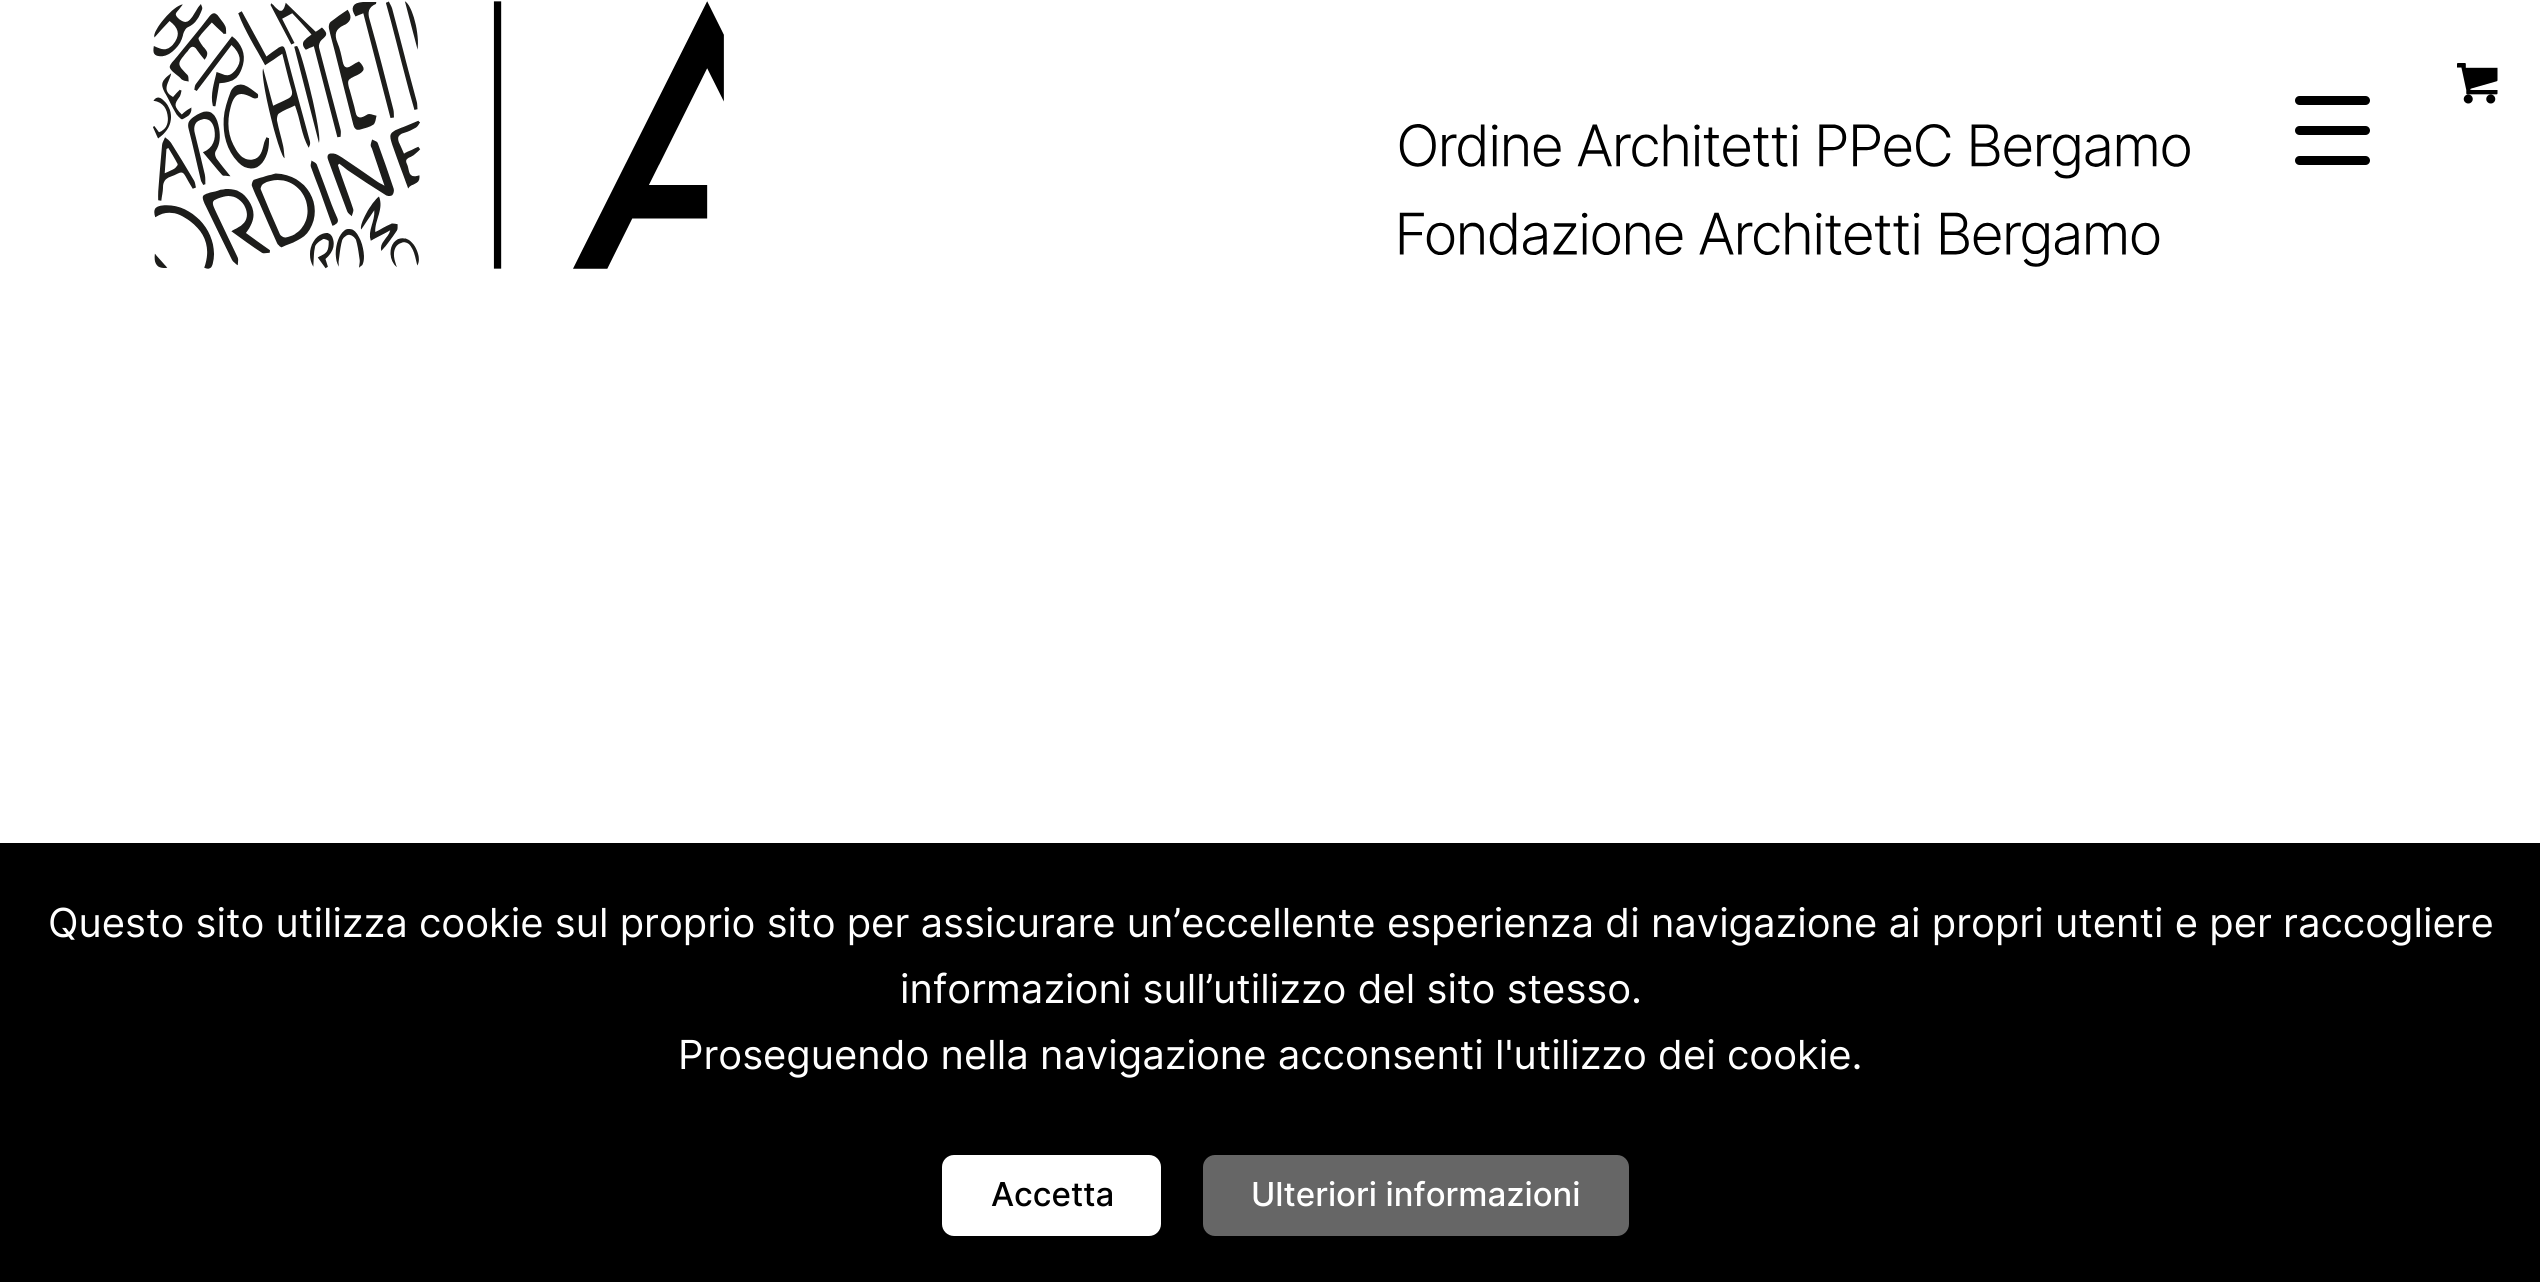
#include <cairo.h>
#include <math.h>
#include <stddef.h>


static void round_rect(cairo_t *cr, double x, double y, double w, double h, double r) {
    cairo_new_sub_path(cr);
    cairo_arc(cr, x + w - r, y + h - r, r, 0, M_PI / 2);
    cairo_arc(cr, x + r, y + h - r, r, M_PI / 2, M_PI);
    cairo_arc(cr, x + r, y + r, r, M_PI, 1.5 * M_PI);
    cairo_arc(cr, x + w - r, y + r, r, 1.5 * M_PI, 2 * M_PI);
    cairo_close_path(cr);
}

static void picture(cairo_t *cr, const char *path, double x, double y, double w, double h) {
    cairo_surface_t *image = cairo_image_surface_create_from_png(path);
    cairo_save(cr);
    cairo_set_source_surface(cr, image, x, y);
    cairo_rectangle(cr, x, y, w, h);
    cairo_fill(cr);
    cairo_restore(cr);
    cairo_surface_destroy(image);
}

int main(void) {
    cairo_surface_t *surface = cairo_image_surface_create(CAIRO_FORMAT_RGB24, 2540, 1282);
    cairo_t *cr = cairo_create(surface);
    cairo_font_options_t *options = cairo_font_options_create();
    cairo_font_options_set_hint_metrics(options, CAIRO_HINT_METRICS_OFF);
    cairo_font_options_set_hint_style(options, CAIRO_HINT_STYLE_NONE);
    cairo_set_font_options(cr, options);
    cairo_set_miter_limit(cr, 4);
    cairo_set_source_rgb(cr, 1, 1, 1);
    cairo_paint(cr);
    picture(cr, "img1.png", 153, 1, 2037, 268);
    picture(cr, "img2.png", 2457, 63, 41, 41);
    cairo_set_source_rgb(cr, 0, 0, 0);
    round_rect(cr, 2295, 126, 75, 9, 4.5);
    cairo_fill(cr);
    round_rect(cr, 2295, 96, 75, 9, 4.5);
    cairo_fill(cr);
    round_rect(cr, 2295, 156, 75, 9, 4.5);
    cairo_fill(cr);
    cairo_rectangle(cr, 0, 843, 2540, 439);
    cairo_fill(cr);
    cairo_select_font_face(cr, "Inter", CAIRO_FONT_SLANT_NORMAL, CAIRO_FONT_WEIGHT_NORMAL);
    cairo_set_font_size(cr, 40);
    cairo_set_source_rgb(cr, 1, 1, 1);
    cairo_move_to(cr, 48, 937);
    cairo_show_text(cr, "Questo sito utilizza cookie sul proprio sito per assicurare un’eccellente esperienza di navigazione ai propri utenti e per raccogliere");
    cairo_move_to(cr, 900, 1003);
    cairo_show_text(cr, "informazioni sull’utilizzo del sito stesso.");
    cairo_move_to(cr, 678, 1069);
    cairo_show_text(cr, "Proseguendo nella navigazione acconsenti l'utilizzo dei cookie.");
    round_rect(cr, 942, 1155, 219, 81, 12);
    cairo_fill(cr);
    cairo_select_font_face(cr, "Inter Medium", CAIRO_FONT_SLANT_NORMAL, CAIRO_FONT_WEIGHT_NORMAL);
    cairo_set_font_size(cr, 33);
    cairo_set_source_rgb(cr, 0, 0, 0);
    cairo_move_to(cr, 991, 1206);
    cairo_show_text(cr, "Accetta");
    cairo_set_source_rgb(cr, 0.4, 0.4, 0.4);
    round_rect(cr, 1203, 1155, 426, 81, 12);
    cairo_fill(cr);
    cairo_set_source_rgb(cr, 1, 1, 1);
    cairo_move_to(cr, 1251, 1206);
    cairo_show_text(cr, "Ulteriori informazioni");
    cairo_surface_write_to_png(surface, "page.png");
    cairo_font_options_destroy(options);
    cairo_destroy(cr);
    cairo_surface_destroy(surface);
    return 0;
}
